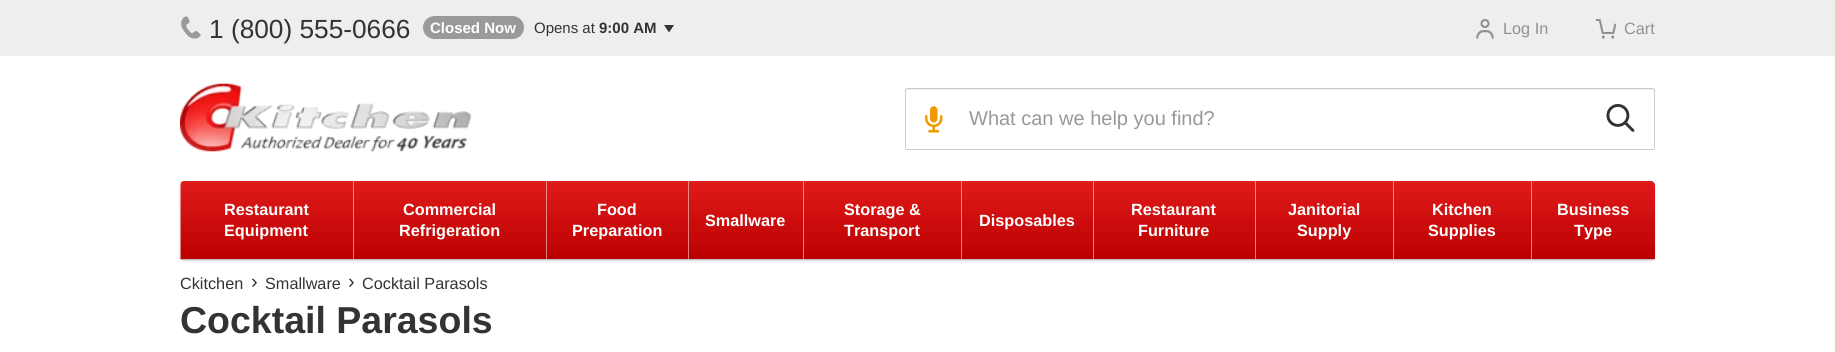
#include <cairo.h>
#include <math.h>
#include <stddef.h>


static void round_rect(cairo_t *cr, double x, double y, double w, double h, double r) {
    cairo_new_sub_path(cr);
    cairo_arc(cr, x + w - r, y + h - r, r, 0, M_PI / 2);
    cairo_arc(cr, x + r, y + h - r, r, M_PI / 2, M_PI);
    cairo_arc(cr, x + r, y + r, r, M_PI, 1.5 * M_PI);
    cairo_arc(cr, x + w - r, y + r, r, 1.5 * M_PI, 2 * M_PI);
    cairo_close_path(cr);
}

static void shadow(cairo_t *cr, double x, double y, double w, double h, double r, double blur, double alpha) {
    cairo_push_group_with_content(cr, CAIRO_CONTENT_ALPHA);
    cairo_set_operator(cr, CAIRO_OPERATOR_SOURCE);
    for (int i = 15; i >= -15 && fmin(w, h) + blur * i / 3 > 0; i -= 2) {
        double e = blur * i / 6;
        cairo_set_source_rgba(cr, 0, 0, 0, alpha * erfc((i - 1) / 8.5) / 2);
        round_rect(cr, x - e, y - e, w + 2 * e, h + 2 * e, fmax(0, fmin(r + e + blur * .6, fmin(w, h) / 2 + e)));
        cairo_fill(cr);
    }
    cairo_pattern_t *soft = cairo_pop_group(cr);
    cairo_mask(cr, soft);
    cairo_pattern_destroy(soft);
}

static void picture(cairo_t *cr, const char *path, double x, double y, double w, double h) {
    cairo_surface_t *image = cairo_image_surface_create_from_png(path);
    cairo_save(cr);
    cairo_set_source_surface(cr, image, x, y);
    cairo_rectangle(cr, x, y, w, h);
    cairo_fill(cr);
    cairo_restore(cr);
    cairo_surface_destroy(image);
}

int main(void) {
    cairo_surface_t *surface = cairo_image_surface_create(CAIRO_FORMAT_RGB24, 1835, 352);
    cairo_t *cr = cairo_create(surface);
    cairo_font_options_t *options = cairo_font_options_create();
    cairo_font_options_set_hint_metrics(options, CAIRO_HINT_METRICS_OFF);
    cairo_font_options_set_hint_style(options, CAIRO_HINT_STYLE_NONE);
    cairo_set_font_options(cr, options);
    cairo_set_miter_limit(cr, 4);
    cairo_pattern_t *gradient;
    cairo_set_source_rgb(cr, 1, 1, 1);
    cairo_paint(cr);
    cairo_set_source_rgb(cr, 0.933, 0.933, 0.933);
    cairo_rectangle(cr, 0, 0, 1835, 56);
    cairo_fill(cr);
    picture(cr, "img1.png", 181, 16, 20, 23);
    cairo_select_font_face(cr, "Liberation Sans", CAIRO_FONT_SLANT_NORMAL, CAIRO_FONT_WEIGHT_NORMAL);
    cairo_set_font_size(cr, 26.25);
    cairo_set_source_rgb(cr, 0.2, 0.2, 0.2);
    cairo_move_to(cr, 209, 38);
    cairo_show_text(cr, "1 (800) 555-0666");
    cairo_set_source_rgb(cr, 0.604, 0.604, 0.604);
    round_rect(cr, 423, 16, 101, 23, 11.5);
    cairo_fill(cr);
    cairo_select_font_face(cr, "Liberation Sans", CAIRO_FONT_SLANT_NORMAL, CAIRO_FONT_WEIGHT_BOLD);
    cairo_set_font_size(cr, 15);
    cairo_set_source_rgb(cr, 1, 1, 1);
    cairo_move_to(cr, 430, 33);
    cairo_show_text(cr, "Closed Now");
    cairo_select_font_face(cr, "Liberation Sans", CAIRO_FONT_SLANT_NORMAL, CAIRO_FONT_WEIGHT_NORMAL);
    cairo_set_source_rgb(cr, 0.2, 0.2, 0.2);
    cairo_move_to(cr, 534, 33);
    cairo_show_text(cr, "Opens at");
    cairo_select_font_face(cr, "Liberation Sans", CAIRO_FONT_SLANT_NORMAL, CAIRO_FONT_WEIGHT_BOLD);
    cairo_move_to(cr, 599, 33);
    cairo_show_text(cr, "9:00 AM");
    cairo_new_path(cr);
    cairo_move_to(cr, 664, 25);
    cairo_line_to(cr, 674, 25);
    cairo_line_to(cr, 669, 32.5);
    cairo_close_path(cr);
    cairo_fill(cr);
    picture(cr, "img2.png", 1476, 19, 18, 20);
    cairo_select_font_face(cr, "Liberation Sans", CAIRO_FONT_SLANT_NORMAL, CAIRO_FONT_WEIGHT_NORMAL);
    cairo_set_font_size(cr, 16.25);
    cairo_set_source_rgb(cr, 0.569, 0.569, 0.569);
    cairo_move_to(cr, 1503, 34);
    cairo_show_text(cr, "Log In");
    picture(cr, "img3.png", 1595, 19, 22, 20);
    cairo_move_to(cr, 1624, 34);
    cairo_show_text(cr, "Cart");
    picture(cr, "img4.png", 180, 83, 292, 69);
    cairo_set_source_rgb(cr, 0.925, 0.925, 0.925);
    cairo_new_path(cr);
    cairo_move_to(cr, 908, 90);
    cairo_line_to(cr, 1653, 90);
    cairo_line_to(cr, 1654, 91);
    cairo_curve_to(cr, 1654, 90, 1654, 89, 1653, 89);
    cairo_line_to(cr, 907, 89);
    cairo_curve_to(cr, 906, 89, 906, 90, 906, 91);
    cairo_close_path(cr);
    cairo_fill(cr);
    round_rect(cr, 905.5, 88.5, 749, 61, 2);
    cairo_set_source_rgb(cr, 0.8, 0.8, 0.8);
    cairo_set_line_width(cr, 1);
    cairo_stroke(cr);
    picture(cr, "img5.png", 925, 106, 18, 27);
    cairo_set_font_size(cr, 20);
    cairo_set_source_rgb(cr, 0.6, 0.6, 0.6);
    cairo_move_to(cr, 969, 125);
    cairo_show_text(cr, "What can we help you find?");
    picture(cr, "img6.png", 1606, 104, 29, 28);
    cairo_set_source_rgb(cr, 0.851, 0.851, 0.851);
    cairo_rectangle(cr, 180, 259, 1475, 1);
    cairo_fill(cr);
    cairo_set_source_rgb(cr, 0, 0, 0);
    shadow(cr, 180, 184, 1475, 77, 4, 1, 0.15);
    gradient = cairo_pattern_create_linear(918, 181, 918, 259);
    cairo_pattern_add_color_stop_rgba(gradient, 0, 0.878, 0.106, 0.102, 1);
    cairo_pattern_add_color_stop_rgba(gradient, 1, 0.733, 0, 0, 1);
    cairo_set_source(cr, gradient);
    cairo_pattern_destroy(gradient);
    cairo_new_path(cr);
    cairo_move_to(cr, 184, 181);
    cairo_line_to(cr, 1651, 181);
    cairo_curve_to(cr, 1653, 181, 1655, 183, 1655, 185);
    cairo_line_to(cr, 1655, 259);
    cairo_line_to(cr, 180, 259);
    cairo_line_to(cr, 180, 185);
    cairo_curve_to(cr, 180, 183, 182, 181, 184, 181);
    cairo_close_path(cr);
    cairo_fill(cr);
    cairo_set_source_rgba(cr, 1, 1, 1, 0.5);
    cairo_rectangle(cr, 180, 181, 1, 78);
    cairo_fill(cr);
    cairo_select_font_face(cr, "Liberation Sans", CAIRO_FONT_SLANT_NORMAL, CAIRO_FONT_WEIGHT_BOLD);
    cairo_set_font_size(cr, 16.25);
    cairo_set_source_rgb(cr, 1, 1, 1);
    cairo_move_to(cr, 224, 215);
    cairo_show_text(cr, "Restaurant");
    cairo_move_to(cr, 224, 236);
    cairo_show_text(cr, "Equipment");
    cairo_set_source_rgba(cr, 1, 1, 1, 0.5);
    cairo_rectangle(cr, 353, 181, 1, 78);
    cairo_fill(cr);
    cairo_set_source_rgb(cr, 1, 1, 1);
    cairo_move_to(cr, 403, 215);
    cairo_show_text(cr, "Commercial");
    cairo_move_to(cr, 399, 236);
    cairo_show_text(cr, "Refrigeration");
    cairo_set_source_rgba(cr, 1, 1, 1, 0.5);
    cairo_rectangle(cr, 546, 181, 1, 78);
    cairo_fill(cr);
    cairo_set_source_rgb(cr, 1, 1, 1);
    cairo_move_to(cr, 597, 215);
    cairo_show_text(cr, "Food");
    cairo_move_to(cr, 572, 236);
    cairo_show_text(cr, "Preparation");
    cairo_set_source_rgba(cr, 1, 1, 1, 0.5);
    cairo_rectangle(cr, 688, 181, 1, 78);
    cairo_fill(cr);
    cairo_set_source_rgb(cr, 1, 1, 1);
    cairo_move_to(cr, 705, 226);
    cairo_show_text(cr, "Smallware");
    cairo_set_source_rgba(cr, 1, 1, 1, 0.5);
    cairo_rectangle(cr, 803, 181, 1, 78);
    cairo_fill(cr);
    cairo_set_source_rgb(cr, 1, 1, 1);
    cairo_move_to(cr, 844, 215);
    cairo_show_text(cr, "Storage &");
    cairo_move_to(cr, 844, 236);
    cairo_show_text(cr, "Transport");
    cairo_set_source_rgba(cr, 1, 1, 1, 0.5);
    cairo_rectangle(cr, 961, 181, 1, 78);
    cairo_fill(cr);
    cairo_set_source_rgb(cr, 1, 1, 1);
    cairo_move_to(cr, 979, 226);
    cairo_show_text(cr, "Disposables");
    cairo_set_source_rgba(cr, 1, 1, 1, 0.5);
    cairo_rectangle(cr, 1093, 181, 1, 78);
    cairo_fill(cr);
    cairo_set_source_rgb(cr, 1, 1, 1);
    cairo_move_to(cr, 1131, 215);
    cairo_show_text(cr, "Restaurant");
    cairo_move_to(cr, 1138, 236);
    cairo_show_text(cr, "Furniture");
    cairo_set_source_rgba(cr, 1, 1, 1, 0.5);
    cairo_rectangle(cr, 1255, 181, 1, 78);
    cairo_fill(cr);
    cairo_set_source_rgb(cr, 1, 1, 1);
    cairo_move_to(cr, 1288, 215);
    cairo_show_text(cr, "Janitorial");
    cairo_move_to(cr, 1297, 236);
    cairo_show_text(cr, "Supply");
    cairo_set_source_rgba(cr, 1, 1, 1, 0.5);
    cairo_rectangle(cr, 1393, 181, 1, 78);
    cairo_fill(cr);
    cairo_set_source_rgb(cr, 1, 1, 1);
    cairo_move_to(cr, 1432, 215);
    cairo_show_text(cr, "Kitchen");
    cairo_move_to(cr, 1428, 236);
    cairo_show_text(cr, "Supplies");
    cairo_set_source_rgba(cr, 1, 1, 1, 0.5);
    cairo_rectangle(cr, 1531, 181, 1, 78);
    cairo_fill(cr);
    cairo_set_source_rgb(cr, 1, 1, 1);
    cairo_move_to(cr, 1557, 215);
    cairo_show_text(cr, "Business");
    cairo_move_to(cr, 1574, 236);
    cairo_show_text(cr, "Type");
    cairo_select_font_face(cr, "Liberation Sans", CAIRO_FONT_SLANT_NORMAL, CAIRO_FONT_WEIGHT_NORMAL);
    cairo_set_source_rgb(cr, 0.2, 0.2, 0.2);
    cairo_move_to(cr, 180, 289);
    cairo_show_text(cr, "Ckitchen");
    cairo_set_font_size(cr, 20);
    cairo_move_to(cr, 251, 288);
    cairo_show_text(cr, "›");
    cairo_set_font_size(cr, 16.25);
    cairo_move_to(cr, 265, 289);
    cairo_show_text(cr, "Smallware");
    cairo_set_font_size(cr, 20);
    cairo_move_to(cr, 348, 288);
    cairo_show_text(cr, "›");
    cairo_set_font_size(cr, 16.25);
    cairo_move_to(cr, 362, 289);
    cairo_show_text(cr, "Cocktail Parasols");
    cairo_select_font_face(cr, "Liberation Sans", CAIRO_FONT_SLANT_NORMAL, CAIRO_FONT_WEIGHT_BOLD);
    cairo_set_font_size(cr, 37.5);
    cairo_move_to(cr, 180, 333);
    cairo_show_text(cr, "Cocktail Parasols");
    cairo_surface_write_to_png(surface, "page.png");
    cairo_font_options_destroy(options);
    cairo_destroy(cr);
    cairo_surface_destroy(surface);
    return 0;
}
